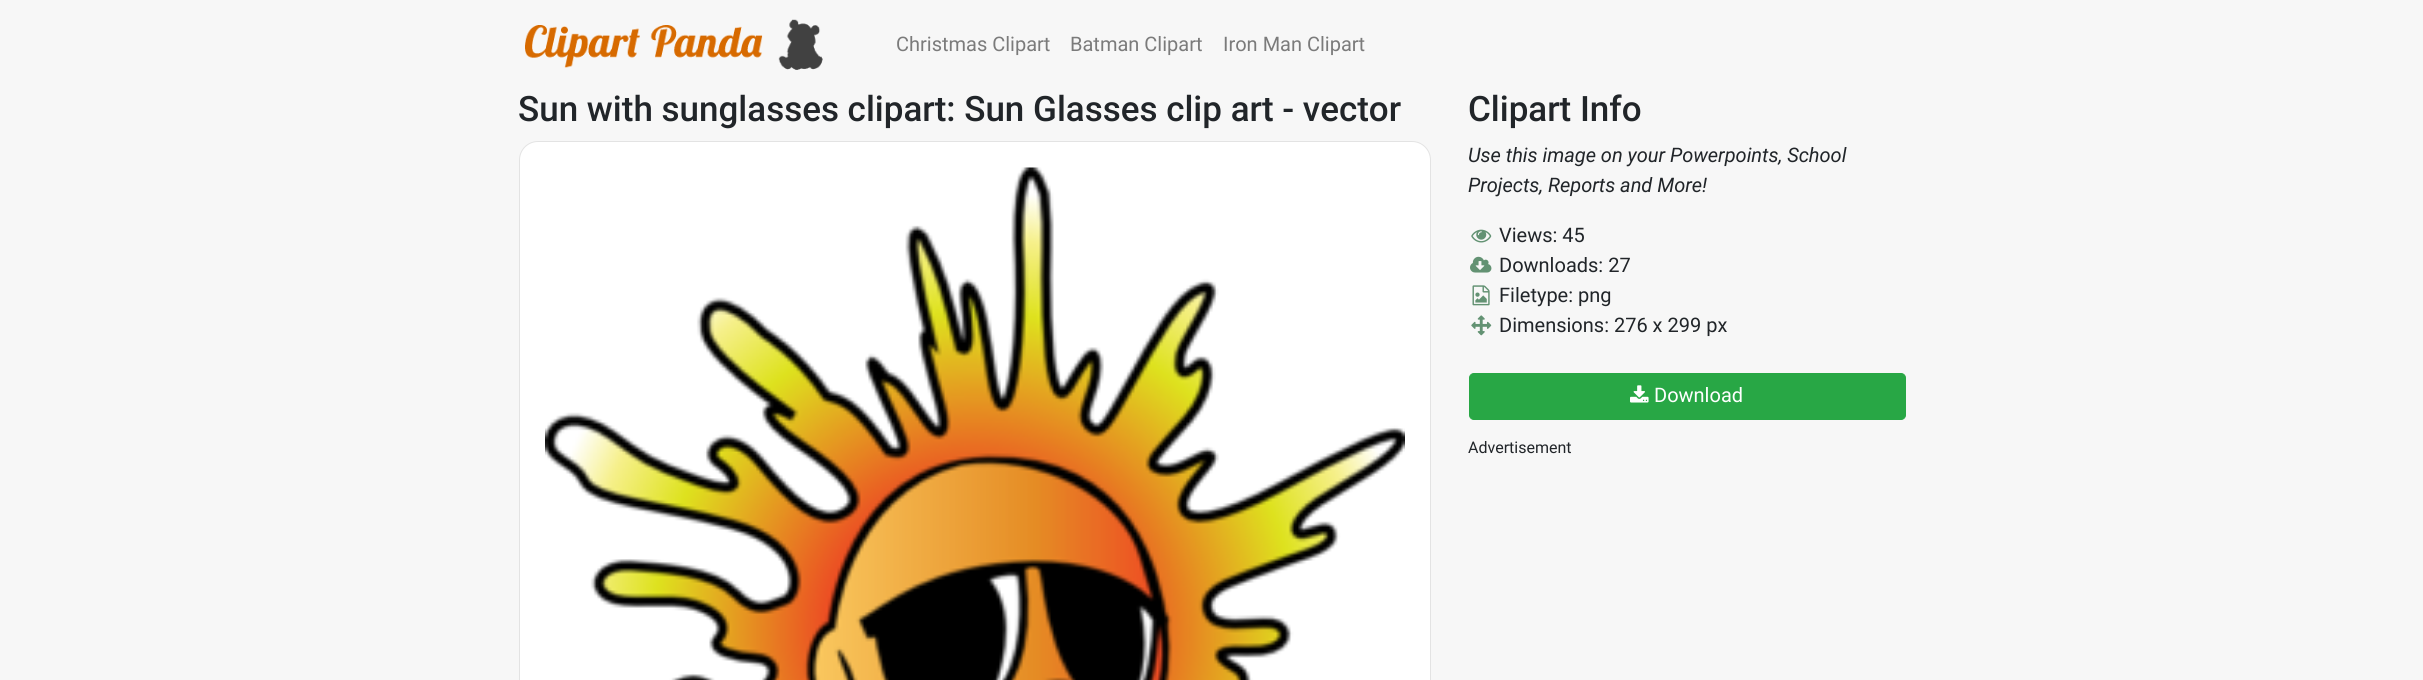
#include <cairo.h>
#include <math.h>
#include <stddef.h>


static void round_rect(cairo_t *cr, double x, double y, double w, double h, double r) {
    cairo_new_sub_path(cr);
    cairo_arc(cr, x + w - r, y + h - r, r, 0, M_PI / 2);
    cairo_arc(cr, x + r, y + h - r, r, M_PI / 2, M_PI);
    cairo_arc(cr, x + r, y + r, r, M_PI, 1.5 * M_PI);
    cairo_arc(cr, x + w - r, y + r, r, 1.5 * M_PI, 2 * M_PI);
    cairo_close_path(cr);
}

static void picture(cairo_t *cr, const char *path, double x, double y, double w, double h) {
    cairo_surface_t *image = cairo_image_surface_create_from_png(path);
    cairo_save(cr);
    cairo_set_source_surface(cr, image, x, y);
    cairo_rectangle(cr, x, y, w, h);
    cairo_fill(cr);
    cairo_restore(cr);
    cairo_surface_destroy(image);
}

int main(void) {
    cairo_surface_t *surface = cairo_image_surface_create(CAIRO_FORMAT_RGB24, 2423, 680);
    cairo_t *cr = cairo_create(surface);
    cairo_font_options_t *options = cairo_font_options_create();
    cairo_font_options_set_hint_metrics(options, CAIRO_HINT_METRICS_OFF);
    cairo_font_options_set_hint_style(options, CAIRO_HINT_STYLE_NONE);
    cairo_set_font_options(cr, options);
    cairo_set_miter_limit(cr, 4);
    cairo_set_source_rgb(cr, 0.965, 0.965, 0.965);
    cairo_paint(cr);
    picture(cr, "img1.png", 525, 19, 298, 51);
    cairo_select_font_face(cr, "Roboto", CAIRO_FONT_SLANT_NORMAL, CAIRO_FONT_WEIGHT_NORMAL);
    cairo_set_font_size(cr, 20);
    cairo_set_source_rgb(cr, 0.482, 0.482, 0.482);
    cairo_move_to(cr, 896, 51);
    cairo_show_text(cr, "Christmas Clipart");
    cairo_move_to(cr, 1070, 51);
    cairo_show_text(cr, "Batman Clipart");
    cairo_move_to(cr, 1223, 51);
    cairo_show_text(cr, "Iron Man Clipart");
    cairo_select_font_face(cr, "Roboto Medium", CAIRO_FONT_SLANT_NORMAL, CAIRO_FONT_WEIGHT_NORMAL);
    cairo_set_font_size(cr, 35);
    cairo_set_source_rgb(cr, 0.129, 0.145, 0.161);
    cairo_move_to(cr, 518, 121);
    cairo_show_text(cr, "Sun with sunglasses clipart: Sun Glasses clip art - vector");
    cairo_set_source_rgb(cr, 1, 1, 1);
    round_rect(cr, 519.5, 141.5, 911, 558, 18.5);
    cairo_fill_preserve(cr);
    cairo_set_source_rgb(cr, 0.89, 0.89, 0.89);
    cairo_set_line_width(cr, 1);
    cairo_stroke(cr);
    picture(cr, "img2.png", 545, 167, 860, 513);
    cairo_set_source_rgb(cr, 0.129, 0.145, 0.161);
    cairo_move_to(cr, 1468, 121);
    cairo_show_text(cr, "Clipart Info");
    cairo_select_font_face(cr, "Roboto", CAIRO_FONT_SLANT_ITALIC, CAIRO_FONT_WEIGHT_NORMAL);
    cairo_set_font_size(cr, 20);
    cairo_move_to(cr, 1468, 162);
    cairo_show_text(cr, "Use this image on your Powerpoints, School");
    cairo_move_to(cr, 1468, 192);
    cairo_show_text(cr, "Projects, Reports and More!");
    picture(cr, "img3.png", 1471, 229, 21, 14);
    cairo_select_font_face(cr, "Roboto", CAIRO_FONT_SLANT_NORMAL, CAIRO_FONT_WEIGHT_NORMAL);
    cairo_move_to(cr, 1499, 242);
    cairo_show_text(cr, "Views: 45");
    picture(cr, "img4.png", 1470, 256, 22, 17);
    cairo_move_to(cr, 1499, 272);
    cairo_show_text(cr, "Downloads: 27");
    picture(cr, "img5.png", 1472, 285, 18, 21);
    cairo_move_to(cr, 1499, 302);
    cairo_show_text(cr, "Filetype: png");
    picture(cr, "img6.png", 1471, 315, 21, 21);
    cairo_move_to(cr, 1499, 332);
    cairo_show_text(cr, "Dimensions: 276 x 299 px");
    cairo_set_source_rgb(cr, 0.157, 0.655, 0.271);
    round_rect(cr, 1469.5, 373.5, 436, 46, 4.5);
    cairo_fill_preserve(cr);
    cairo_stroke(cr);
    picture(cr, "img7.png", 1630, 385, 19, 18);
    cairo_set_source_rgb(cr, 1, 1, 1);
    cairo_move_to(cr, 1654, 402);
    cairo_show_text(cr, "Download");
    cairo_set_font_size(cr, 16);
    cairo_set_source_rgb(cr, 0.129, 0.145, 0.161);
    cairo_move_to(cr, 1468, 453);
    cairo_show_text(cr, "Advertisement");
    cairo_surface_write_to_png(surface, "page.png");
    cairo_font_options_destroy(options);
    cairo_destroy(cr);
    cairo_surface_destroy(surface);
    return 0;
}
